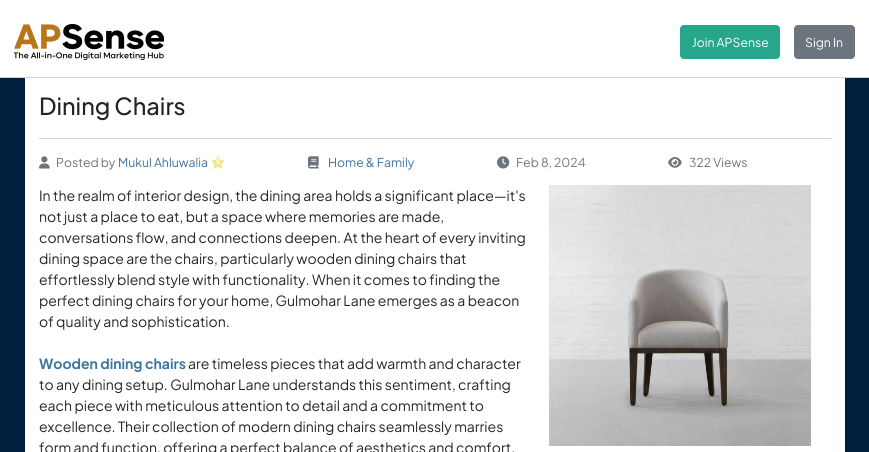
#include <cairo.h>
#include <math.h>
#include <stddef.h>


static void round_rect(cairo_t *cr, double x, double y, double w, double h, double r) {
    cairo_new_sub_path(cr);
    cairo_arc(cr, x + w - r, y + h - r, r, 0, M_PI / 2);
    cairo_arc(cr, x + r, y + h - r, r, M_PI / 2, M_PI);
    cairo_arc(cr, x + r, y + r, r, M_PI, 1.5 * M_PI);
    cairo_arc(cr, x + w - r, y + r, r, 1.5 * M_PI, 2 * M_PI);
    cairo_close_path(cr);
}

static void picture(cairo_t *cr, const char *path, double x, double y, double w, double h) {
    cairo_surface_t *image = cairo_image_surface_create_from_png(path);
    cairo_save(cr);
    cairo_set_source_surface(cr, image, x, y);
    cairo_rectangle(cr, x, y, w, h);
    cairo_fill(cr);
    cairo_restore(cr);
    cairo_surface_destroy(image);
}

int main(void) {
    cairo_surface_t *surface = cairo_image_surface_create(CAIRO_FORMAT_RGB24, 869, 452);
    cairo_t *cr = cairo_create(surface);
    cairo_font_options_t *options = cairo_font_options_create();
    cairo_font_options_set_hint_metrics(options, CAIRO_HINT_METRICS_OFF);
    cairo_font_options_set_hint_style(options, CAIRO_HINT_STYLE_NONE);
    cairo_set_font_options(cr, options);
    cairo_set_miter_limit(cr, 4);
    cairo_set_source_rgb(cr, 0, 0.122, 0.247);
    cairo_paint(cr);
    cairo_set_source_rgb(cr, 1, 1, 1);
    cairo_rectangle(cr, 0, 0, 869, 77);
    cairo_fill(cr);
    cairo_set_source_rgb(cr, 0.82, 0.82, 0.82);
    cairo_rectangle(cr, 0, 77, 869, 1);
    cairo_fill(cr);
    picture(cr, "img1.png", 14, 24, 150, 36);
    cairo_set_source_rgb(cr, 0.153, 0.651, 0.549);
    round_rect(cr, 680.5, 25.5, 99, 33, 3.5);
    cairo_fill_preserve(cr);
    cairo_set_line_width(cr, 1);
    cairo_stroke(cr);
    cairo_select_font_face(cr, "Plus Jakarta Sans", CAIRO_FONT_SLANT_NORMAL, CAIRO_FONT_WEIGHT_NORMAL);
    cairo_set_font_size(cr, 12.25);
    cairo_set_source_rgb(cr, 1, 1, 1);
    cairo_move_to(cr, 692, 47);
    cairo_show_text(cr, "Join APSense");
    cairo_set_source_rgb(cr, 0.424, 0.459, 0.49);
    round_rect(cr, 794.5, 25.5, 60, 33, 3.5);
    cairo_fill_preserve(cr);
    cairo_stroke(cr);
    cairo_set_source_rgb(cr, 1, 1, 1);
    cairo_move_to(cr, 805, 47);
    cairo_show_text(cr, "Sign In");
    cairo_rectangle(cr, 25, 78, 820, 374);
    cairo_fill(cr);
    cairo_set_source_rgb(cr, 0.82, 0.82, 0.82);
    cairo_rectangle(cr, 39, 138, 792, 1);
    cairo_fill(cr);
    cairo_select_font_face(cr, "Plus Jakarta Sans Medium", CAIRO_FONT_SLANT_NORMAL, CAIRO_FONT_WEIGHT_NORMAL);
    cairo_set_font_size(cr, 23.5);
    cairo_set_source_rgb(cr, 0.129, 0.145, 0.161);
    cairo_move_to(cr, 39, 115);
    cairo_show_text(cr, "Dining Chairs");
    picture(cr, "img2.png", 39, 156, 11, 13);
    cairo_select_font_face(cr, "Plus Jakarta Sans", CAIRO_FONT_SLANT_NORMAL, CAIRO_FONT_WEIGHT_NORMAL);
    cairo_set_font_size(cr, 12.25);
    cairo_set_source_rgb(cr, 0.424, 0.459, 0.49);
    cairo_move_to(cr, 56, 167);
    cairo_show_text(cr, "Posted by");
    cairo_set_source_rgb(cr, 0.243, 0.455, 0.627);
    cairo_move_to(cr, 118, 167);
    cairo_show_text(cr, "Mukul Ahluwalia");
    picture(cr, "img3.png", 211, 156, 14, 13);
    cairo_select_font_face(cr, "Plus Jakarta Sans", CAIRO_FONT_SLANT_NORMAL, CAIRO_FONT_WEIGHT_BOLD);
    cairo_set_font_size(cr, 7);
    cairo_set_source_rgb(cr, 1, 1, 1);
    cairo_move_to(cr, 216, 164);
    cairo_show_text(cr, "5");
    picture(cr, "img4.png", 308, 156, 11, 13);
    cairo_select_font_face(cr, "Plus Jakarta Sans", CAIRO_FONT_SLANT_NORMAL, CAIRO_FONT_WEIGHT_NORMAL);
    cairo_set_font_size(cr, 12.25);
    cairo_set_source_rgb(cr, 0.243, 0.455, 0.627);
    cairo_move_to(cr, 328, 167);
    cairo_show_text(cr, "Home & Family");
    picture(cr, "img5.png", 497, 156, 13, 13);
    cairo_set_source_rgb(cr, 0.424, 0.459, 0.49);
    cairo_move_to(cr, 516, 167);
    cairo_show_text(cr, "Feb 8, 2024");
    picture(cr, "img6.png", 668, 157, 14, 11);
    cairo_move_to(cr, 689, 167);
    cairo_show_text(cr, "322 Views");
    cairo_set_font_size(cr, 14);
    cairo_set_source_rgb(cr, 0.129, 0.145, 0.161);
    cairo_move_to(cr, 39, 201);
    cairo_show_text(cr, "In the realm of interior design, the dining area holds a significant place—it's");
    cairo_move_to(cr, 39, 222);
    cairo_show_text(cr, "not just a place to eat, but a space where memories are made,");
    cairo_move_to(cr, 39, 243);
    cairo_show_text(cr, "conversations flow, and connections deepen. At the heart of every inviting");
    cairo_move_to(cr, 39, 264);
    cairo_show_text(cr, "dining space are the chairs, particularly wooden dining chairs that");
    cairo_move_to(cr, 39, 285);
    cairo_show_text(cr, "effortlessly blend style with functionality. When it comes to finding the");
    cairo_move_to(cr, 39, 306);
    cairo_show_text(cr, "perfect dining chairs for your home, Gulmohar Lane emerges as a beacon");
    cairo_move_to(cr, 39, 327);
    cairo_show_text(cr, "of quality and sophistication.");
    picture(cr, "img7.png", 549, 185, 262, 261);
    cairo_select_font_face(cr, "Plus Jakarta Sans", CAIRO_FONT_SLANT_NORMAL, CAIRO_FONT_WEIGHT_BOLD);
    cairo_set_source_rgb(cr, 0.243, 0.455, 0.627);
    cairo_move_to(cr, 39, 369);
    cairo_show_text(cr, "Wooden dining chairs");
    cairo_select_font_face(cr, "Plus Jakarta Sans", CAIRO_FONT_SLANT_NORMAL, CAIRO_FONT_WEIGHT_NORMAL);
    cairo_set_source_rgb(cr, 0.129, 0.145, 0.161);
    cairo_move_to(cr, 188, 369);
    cairo_show_text(cr, "are timeless pieces that add warmth and character");
    cairo_move_to(cr, 39, 390);
    cairo_show_text(cr, "to any dining setup. Gulmohar Lane understands this sentiment, crafting");
    cairo_move_to(cr, 39, 411);
    cairo_show_text(cr, "each piece with meticulous attention to detail and a commitment to");
    cairo_move_to(cr, 39, 432);
    cairo_show_text(cr, "excellence. Their collection of modern dining chairs seamlessly marries");
    cairo_move_to(cr, 39, 453);
    cairo_show_text(cr, "form and function, offering a perfect balance of aesthetics and comfort.");
    cairo_surface_write_to_png(surface, "page.png");
    cairo_font_options_destroy(options);
    cairo_destroy(cr);
    cairo_surface_destroy(surface);
    return 0;
}
